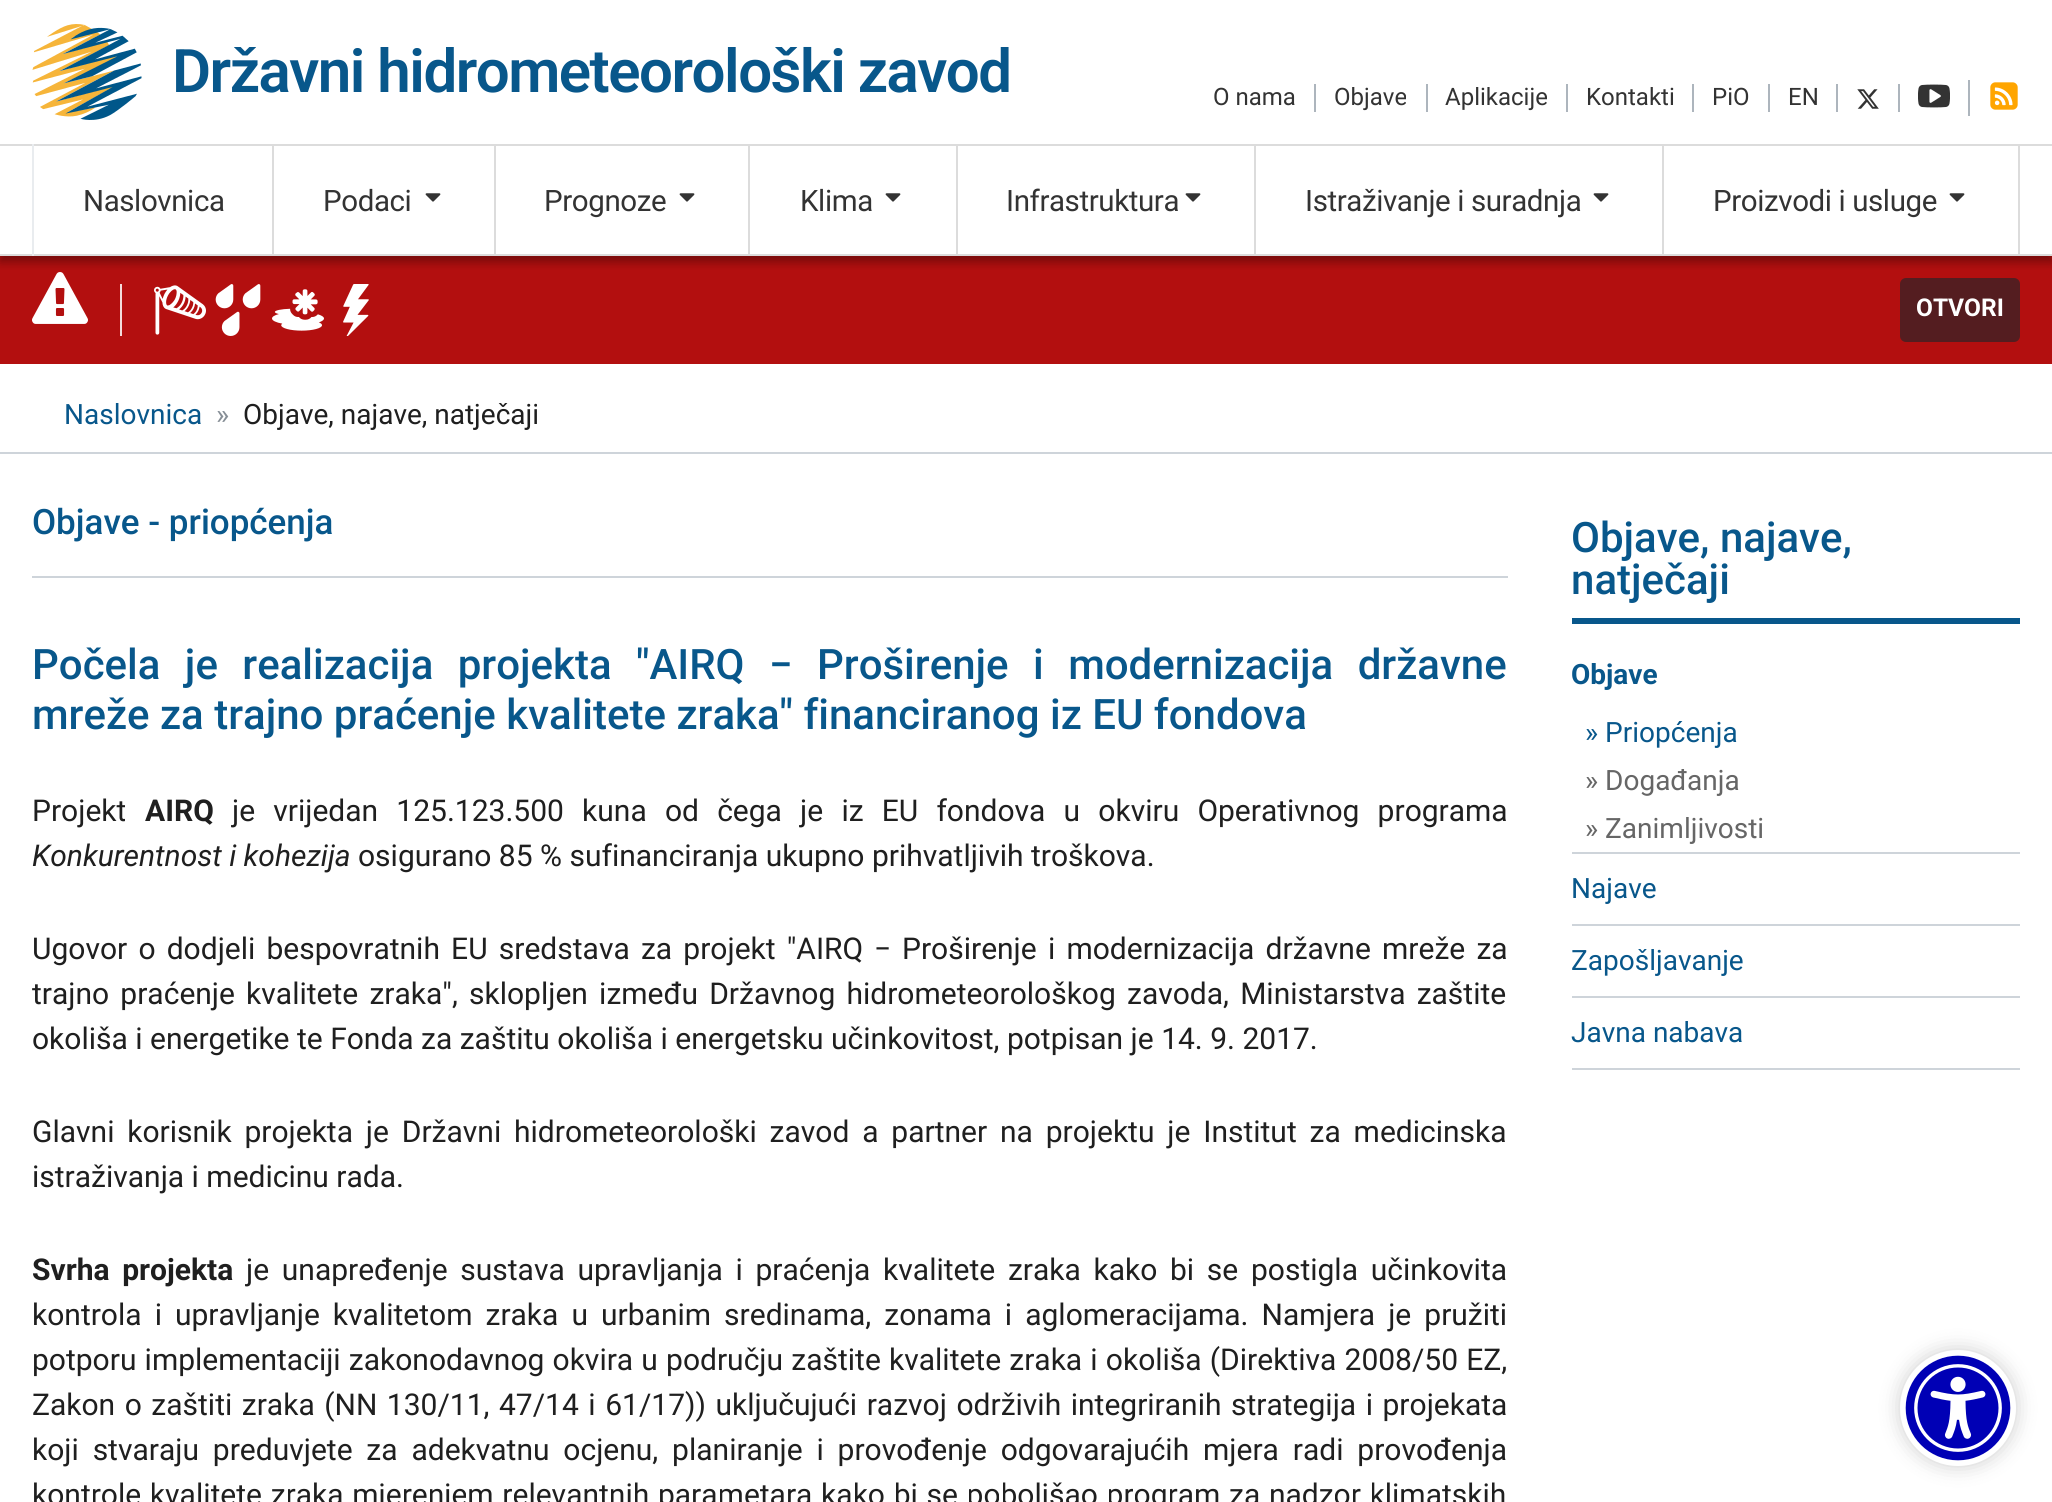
#include <cairo.h>
#include <math.h>
#include <stddef.h>


static void spaced_text(cairo_t *cr, double x, double y, const char *s, double letter, double word) {
    cairo_move_to(cr, x, y);
    while (*s) {
        char ch[5] = {0};
        int n = 0;
        do ch[n++] = *s++; while ((*s & 0xC0) == 0x80);
        cairo_show_text(cr, ch);
        cairo_rel_move_to(cr, letter + word * (*ch == ' '), 0);
    }
}

static void round_rect(cairo_t *cr, double x, double y, double w, double h, double r) {
    cairo_new_sub_path(cr);
    cairo_arc(cr, x + w - r, y + h - r, r, 0, M_PI / 2);
    cairo_arc(cr, x + r, y + h - r, r, M_PI / 2, M_PI);
    cairo_arc(cr, x + r, y + r, r, M_PI, 1.5 * M_PI);
    cairo_arc(cr, x + w - r, y + r, r, 1.5 * M_PI, 2 * M_PI);
    cairo_close_path(cr);
}

static void shadow(cairo_t *cr, double x, double y, double w, double h, double r, double blur, double alpha) {
    cairo_push_group_with_content(cr, CAIRO_CONTENT_ALPHA);
    cairo_set_operator(cr, CAIRO_OPERATOR_SOURCE);
    for (int i = 15; i >= -15 && fmin(w, h) + blur * i / 3 > 0; i -= 2) {
        double e = blur * i / 6;
        cairo_set_source_rgba(cr, 0, 0, 0, alpha * erfc((i - 1) / 8.5) / 2);
        round_rect(cr, x - e, y - e, w + 2 * e, h + 2 * e, fmax(0, fmin(r + e + blur * .6, fmin(w, h) / 2 + e)));
        cairo_fill(cr);
    }
    cairo_pattern_t *soft = cairo_pop_group(cr);
    cairo_mask(cr, soft);
    cairo_pattern_destroy(soft);
}

static void picture(cairo_t *cr, const char *path, double x, double y, double w, double h) {
    cairo_surface_t *image = cairo_image_surface_create_from_png(path);
    cairo_save(cr);
    cairo_set_source_surface(cr, image, x, y);
    cairo_rectangle(cr, x, y, w, h);
    cairo_fill(cr);
    cairo_restore(cr);
    cairo_surface_destroy(image);
}

int main(void) {
    cairo_surface_t *surface = cairo_image_surface_create(CAIRO_FORMAT_RGB24, 2052, 1502);
    cairo_t *cr = cairo_create(surface);
    cairo_font_options_t *options = cairo_font_options_create();
    cairo_font_options_set_hint_metrics(options, CAIRO_HINT_METRICS_OFF);
    cairo_font_options_set_hint_style(options, CAIRO_HINT_STYLE_NONE);
    cairo_set_font_options(cr, options);
    cairo_set_miter_limit(cr, 4);
    cairo_set_source_rgb(cr, 1, 1, 1);
    cairo_paint(cr);
    cairo_set_source_rgb(cr, 0.702, 0.059, 0.059);
    cairo_rectangle(cr, 0, 256, 2052, 108);
    cairo_fill(cr);
    picture(cr, "img6.png", 32, 272, 56, 52);
    cairo_save(cr);
    cairo_rectangle(cr, 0, 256, 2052, 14);
    cairo_clip(cr);
    cairo_set_source_rgb(cr, 0, 0, 0);
    shadow(cr, 0, 6, 2052, 256, 0, 5, 0.35);
    cairo_restore(cr);
    picture(cr, "img1.png", 32, 24, 110, 96);
    cairo_select_font_face(cr, "Roboto SemiBold", CAIRO_FONT_SLANT_NORMAL, CAIRO_FONT_WEIGHT_NORMAL);
    cairo_set_font_size(cr, 60);
    cairo_set_source_rgb(cr, 0.035, 0.341, 0.545);
    spaced_text(cr, 172, 92, "Državni hidrometeorološki zavod", -1.5, 0);
    cairo_set_source_rgb(cr, 0.678, 0.71, 0.741);
    cairo_rectangle(cr, 1314, 84, 2, 28);
    cairo_fill(cr);
    cairo_select_font_face(cr, "Roboto", CAIRO_FONT_SLANT_NORMAL, CAIRO_FONT_WEIGHT_NORMAL);
    cairo_set_font_size(cr, 24);
    cairo_set_source_rgb(cr, 0.2, 0.2, 0.2);
    cairo_move_to(cr, 1213, 105);
    cairo_show_text(cr, "O nama");
    cairo_set_source_rgb(cr, 0.678, 0.71, 0.741);
    cairo_rectangle(cr, 1426, 84, 2, 28);
    cairo_fill(cr);
    cairo_set_source_rgb(cr, 0.2, 0.2, 0.2);
    cairo_move_to(cr, 1334, 105);
    cairo_show_text(cr, "Objave");
    cairo_set_source_rgb(cr, 0.678, 0.71, 0.741);
    cairo_rectangle(cr, 1566, 84, 2, 28);
    cairo_fill(cr);
    cairo_set_source_rgb(cr, 0.2, 0.2, 0.2);
    cairo_move_to(cr, 1445, 105);
    cairo_show_text(cr, "Aplikacije");
    cairo_set_source_rgb(cr, 0.678, 0.71, 0.741);
    cairo_rectangle(cr, 1692, 84, 2, 28);
    cairo_fill(cr);
    cairo_set_source_rgb(cr, 0.2, 0.2, 0.2);
    cairo_move_to(cr, 1586, 105);
    cairo_show_text(cr, "Kontakti");
    cairo_set_source_rgb(cr, 0.678, 0.71, 0.741);
    cairo_rectangle(cr, 1768, 84, 2, 28);
    cairo_fill(cr);
    cairo_set_source_rgb(cr, 0.2, 0.2, 0.2);
    cairo_move_to(cr, 1712, 105);
    cairo_show_text(cr, "PiO");
    cairo_set_source_rgb(cr, 0.678, 0.71, 0.741);
    cairo_rectangle(cr, 1836, 84, 2, 28);
    cairo_fill(cr);
    cairo_set_source_rgb(cr, 0.2, 0.2, 0.2);
    cairo_move_to(cr, 1788, 105);
    cairo_show_text(cr, "EN");
    cairo_set_source_rgb(cr, 0.678, 0.71, 0.741);
    cairo_rectangle(cr, 1898, 84, 2, 28);
    cairo_fill(cr);
    picture(cr, "img2.png", 1857, 89, 22, 20);
    cairo_rectangle(cr, 1968, 80, 2, 36);
    cairo_fill(cr);
    picture(cr, "img3.png", 1918, 84, 32, 24);
    picture(cr, "img4.png", 1990, 82, 28, 28);
    cairo_set_source_rgb(cr, 0.863, 0.863, 0.863);
    cairo_rectangle(cr, 0, 144, 2052, 2);
    cairo_fill(cr);
    cairo_rectangle(cr, 0, 254, 2052, 2);
    cairo_fill(cr);
    cairo_rectangle(cr, 272, 144, 2, 112);
    cairo_fill(cr);
    cairo_set_source_rgb(cr, 0.914, 0.925, 0.937);
    cairo_rectangle(cr, 32, 144, 2, 112);
    cairo_fill(cr);
    cairo_set_font_size(cr, 29.5);
    cairo_set_source_rgb(cr, 0.2, 0.2, 0.2);
    spaced_text(cr, 83, 211, "Naslovnica", -0.4, 0);
    cairo_set_source_rgb(cr, 0.863, 0.863, 0.863);
    cairo_rectangle(cr, 494, 144, 2, 112);
    cairo_fill(cr);
    cairo_set_source_rgb(cr, 0.2, 0.2, 0.2);
    spaced_text(cr, 323, 211, "Podaci", -0.4, 0);
    picture(cr, "img5.png", 425, 193, 16, 9);
    cairo_set_source_rgb(cr, 0.863, 0.863, 0.863);
    cairo_rectangle(cr, 748, 144, 2, 112);
    cairo_fill(cr);
    cairo_set_source_rgb(cr, 0.2, 0.2, 0.2);
    spaced_text(cr, 544, 211, "Prognoze", -0.4, 0);
    picture(cr, "img5.png", 679, 193, 16, 9);
    cairo_set_source_rgb(cr, 0.863, 0.863, 0.863);
    cairo_rectangle(cr, 956, 144, 2, 112);
    cairo_fill(cr);
    cairo_set_source_rgb(cr, 0.2, 0.2, 0.2);
    spaced_text(cr, 800, 211, "Klima", -0.4, 0);
    picture(cr, "img5.png", 885, 193, 16, 9);
    cairo_set_source_rgb(cr, 0.863, 0.863, 0.863);
    cairo_rectangle(cr, 1254, 144, 2, 112);
    cairo_fill(cr);
    cairo_set_source_rgb(cr, 0.2, 0.2, 0.2);
    spaced_text(cr, 1006, 211, "Infrastruktura", -0.4, 0);
    picture(cr, "img5.png", 1185, 193, 16, 9);
    cairo_set_source_rgb(cr, 0.863, 0.863, 0.863);
    cairo_rectangle(cr, 1662, 144, 2, 112);
    cairo_fill(cr);
    cairo_set_source_rgb(cr, 0.2, 0.2, 0.2);
    spaced_text(cr, 1305, 211, "Istraživanje i suradnja", -0.4, 0);
    picture(cr, "img5.png", 1593, 193, 16, 9);
    cairo_set_source_rgb(cr, 0.863, 0.863, 0.863);
    cairo_rectangle(cr, 2018, 144, 2, 112);
    cairo_fill(cr);
    cairo_set_source_rgb(cr, 0.2, 0.2, 0.2);
    spaced_text(cr, 1713, 211, "Proizvodi i usluge", -0.4, 0);
    picture(cr, "img5.png", 1949, 193, 16, 9);
    cairo_set_source_rgb(cr, 0.957, 0.859, 0.859);
    cairo_rectangle(cr, 120, 284, 2, 52);
    cairo_fill(cr);
    picture(cr, "img7.png", 154, 285, 52, 50);
    picture(cr, "img8.png", 215, 284, 46, 52);
    picture(cr, "img9.png", 272, 289, 52, 42);
    picture(cr, "img10.png", 343, 284, 26, 52);
    cairo_set_source_rgb(cr, 0.329, 0.114, 0.125);
    round_rect(cr, 1900, 278, 120, 64, 6);
    cairo_fill(cr);
    cairo_select_font_face(cr, "Roboto", CAIRO_FONT_SLANT_NORMAL, CAIRO_FONT_WEIGHT_BOLD);
    cairo_set_font_size(cr, 24.5);
    cairo_set_source_rgb(cr, 1, 1, 1);
    cairo_move_to(cr, 1916, 316);
    cairo_show_text(cr, "OTVORI");
    cairo_set_source_rgb(cr, 0.808, 0.831, 0.855);
    cairo_rectangle(cr, 0, 452, 2052, 2);
    cairo_fill(cr);
    cairo_select_font_face(cr, "Roboto", CAIRO_FONT_SLANT_NORMAL, CAIRO_FONT_WEIGHT_NORMAL);
    cairo_set_font_size(cr, 28);
    cairo_set_source_rgb(cr, 0.035, 0.341, 0.545);
    cairo_move_to(cr, 64, 424);
    cairo_show_text(cr, "Naslovnica");
    cairo_set_source_rgb(cr, 0.525, 0.557, 0.588);
    cairo_move_to(cr, 216, 424);
    cairo_show_text(cr, "»");
    cairo_set_source_rgb(cr, 0.122, 0.122, 0.122);
    cairo_move_to(cr, 243, 424);
    cairo_show_text(cr, "Objave, najave, natječaji");
    cairo_select_font_face(cr, "Roboto Medium", CAIRO_FONT_SLANT_NORMAL, CAIRO_FONT_WEIGHT_NORMAL);
    cairo_set_font_size(cr, 35);
    cairo_set_source_rgb(cr, 0.035, 0.341, 0.545);
    cairo_move_to(cr, 32, 534);
    cairo_show_text(cr, "Objave - priopćenja");
    cairo_set_source_rgb(cr, 0.808, 0.831, 0.855);
    cairo_rectangle(cr, 32, 576, 1476, 2);
    cairo_fill(cr);
    cairo_set_font_size(cr, 42);
    cairo_set_source_rgb(cr, 0.035, 0.341, 0.545);
    spaced_text(cr, 32, 679, "Počela je realizacija projekta \"AIRQ", 0, 14);
    cairo_move_to(cr, 769, 679);
    cairo_show_text(cr, "−");
    spaced_text(cr, 817, 679, "Proširenje i modernizacija državne", 0, 14);
    cairo_move_to(cr, 32, 729);
    cairo_show_text(cr, "mreže za trajno praćenje kvalitete zraka\" financiranog iz EU fondova");
    cairo_select_font_face(cr, "Roboto", CAIRO_FONT_SLANT_NORMAL, CAIRO_FONT_WEIGHT_NORMAL);
    cairo_set_font_size(cr, 30);
    cairo_set_source_rgb(cr, 0.122, 0.122, 0.122);
    cairo_move_to(cr, 32, 821);
    cairo_show_text(cr, "Projekt");
    cairo_select_font_face(cr, "Roboto", CAIRO_FONT_SLANT_NORMAL, CAIRO_FONT_WEIGHT_BOLD);
    cairo_move_to(cr, 145, 821);
    cairo_show_text(cr, "AIRQ");
    cairo_select_font_face(cr, "Roboto", CAIRO_FONT_SLANT_NORMAL, CAIRO_FONT_WEIGHT_NORMAL);
    spaced_text(cr, 232, 821, "je vrijedan 125.123.500 kuna od čega je iz EU fondova u okviru Operativnog programa", 0, 10.75);
    cairo_select_font_face(cr, "Roboto", CAIRO_FONT_SLANT_ITALIC, CAIRO_FONT_WEIGHT_NORMAL);
    cairo_move_to(cr, 32, 866);
    cairo_show_text(cr, "Konkurentnost i kohezija");
    cairo_select_font_face(cr, "Roboto", CAIRO_FONT_SLANT_NORMAL, CAIRO_FONT_WEIGHT_NORMAL);
    cairo_move_to(cr, 358, 866);
    cairo_show_text(cr, "osigurano 85 % sufinanciranja ukupno prihvatljivih troškova.");
    spaced_text(cr, 32, 959, "Ugovor o dodjeli bespovratnih EU sredstava za projekt \"AIRQ", 0, 3.75);
    cairo_move_to(cr, 874, 959);
    cairo_show_text(cr, "−");
    spaced_text(cr, 902, 959, "Proširenje i modernizacija državne mreže za", 0, 3.75);
    spaced_text(cr, 32, 1004, "trajno praćenje kvalitete zraka\", sklopljen između Državnog hidrometeorološkog zavoda, Ministarstva zaštite", 0, 3.75);
    cairo_move_to(cr, 32, 1049);
    cairo_show_text(cr, "okoliša i energetike te Fonda za zaštitu okoliša i energetsku učinkovitost, potpisan je 14. 9. 2017.");
    spaced_text(cr, 32, 1142, "Glavni korisnik projekta je Državni hidrometeorološki zavod a partner na projektu je Institut za medicinska", 0, 5.4);
    cairo_move_to(cr, 32, 1187);
    cairo_show_text(cr, "istraživanja i medicinu rada.");
    cairo_select_font_face(cr, "Roboto", CAIRO_FONT_SLANT_NORMAL, CAIRO_FONT_WEIGHT_BOLD);
    spaced_text(cr, 32, 1280, "Svrha projekta", 0, 5.25);
    cairo_select_font_face(cr, "Roboto", CAIRO_FONT_SLANT_NORMAL, CAIRO_FONT_WEIGHT_NORMAL);
    spaced_text(cr, 246, 1280, "je unapređenje sustava upravljanja i praćenja kvalitete zraka kako bi se postigla učinkovita", 0, 5.25);
    spaced_text(cr, 32, 1325, "kontrola i upravljanje kvalitetom zraka u urbanim sredinama, zonama i aglomeracijama. Namjera je pružiti", 0, 5.6);
    spaced_text(cr, 32, 1370, "potporu implementaciji zakonodavnog okvira u području zaštite kvalitete zraka i okoliša (Direktiva 2008/50 EZ,", 0, 0.75);
    spaced_text(cr, 32, 1415, "Zakon o zaštiti zraka (NN 130/11, 47/14 i 61/17)) uključujući razvoj održivih integriranih strategija i projekata", 0, 2.1);
    spaced_text(cr, 32, 1460, "koji stvaraju preduvjete za adekvatnu ocjenu, planiranje i provođenje odgovarajućih mjera radi provođenja", 0, 6.4);
    spaced_text(cr, 32, 1505, "kontrole kvalitete zraka mjerenjem relevantnih parametara kako bi se poboljšao program za nadzor klimatskih", 0, 1.25);
    cairo_set_source_rgb(cr, 0.035, 0.341, 0.545);
    cairo_rectangle(cr, 1572, 618, 448, 6);
    cairo_fill(cr);
    cairo_select_font_face(cr, "Roboto Medium", CAIRO_FONT_SLANT_NORMAL, CAIRO_FONT_WEIGHT_NORMAL);
    cairo_set_font_size(cr, 42);
    cairo_move_to(cr, 1571, 552);
    cairo_show_text(cr, "Objave, najave,");
    cairo_move_to(cr, 1571, 594);
    cairo_show_text(cr, "natječaji");
    cairo_set_source_rgb(cr, 0.808, 0.831, 0.855);
    cairo_rectangle(cr, 1572, 852, 448, 2);
    cairo_fill(cr);
    cairo_select_font_face(cr, "Roboto", CAIRO_FONT_SLANT_NORMAL, CAIRO_FONT_WEIGHT_BOLD);
    cairo_set_font_size(cr, 28);
    cairo_set_source_rgb(cr, 0.035, 0.341, 0.545);
    cairo_move_to(cr, 1571, 684);
    cairo_show_text(cr, "Objave");
    cairo_select_font_face(cr, "Roboto", CAIRO_FONT_SLANT_NORMAL, CAIRO_FONT_WEIGHT_NORMAL);
    cairo_move_to(cr, 1585, 742);
    cairo_show_text(cr, "» Priopćenja");
    cairo_set_source_rgb(cr, 0.4, 0.4, 0.4);
    cairo_move_to(cr, 1585, 790);
    cairo_show_text(cr, "» Događanja");
    cairo_move_to(cr, 1585, 838);
    cairo_show_text(cr, "» Zanimljivosti");
    cairo_set_source_rgb(cr, 0.808, 0.831, 0.855);
    cairo_rectangle(cr, 1572, 924, 448, 2);
    cairo_fill(cr);
    cairo_set_source_rgb(cr, 0.035, 0.341, 0.545);
    cairo_move_to(cr, 1571, 898);
    cairo_show_text(cr, "Najave");
    cairo_set_source_rgb(cr, 0.808, 0.831, 0.855);
    cairo_rectangle(cr, 1572, 996, 448, 2);
    cairo_fill(cr);
    cairo_set_source_rgb(cr, 0.035, 0.341, 0.545);
    cairo_move_to(cr, 1571, 970);
    cairo_show_text(cr, "Zapošljavanje");
    cairo_set_source_rgb(cr, 0.808, 0.831, 0.855);
    cairo_rectangle(cr, 1572, 1068, 448, 2);
    cairo_fill(cr);
    cairo_set_source_rgb(cr, 0.035, 0.341, 0.545);
    cairo_move_to(cr, 1571, 1042);
    cairo_show_text(cr, "Javna nabava");
    cairo_set_source_rgb(cr, 0, 0, 0);
    shadow(cr, 1900, 1350, 116, 116, 58, 10, 0.2);
    cairo_set_source_rgb(cr, 1, 1, 1);
    cairo_arc(cr, 1958, 1408, 58, 0, 2 * M_PI);
    cairo_fill(cr);
    picture(cr, "img11.png", 1905, 1355, 106, 106);
    cairo_surface_write_to_png(surface, "page.png");
    cairo_font_options_destroy(options);
    cairo_destroy(cr);
    cairo_surface_destroy(surface);
    return 0;
}
